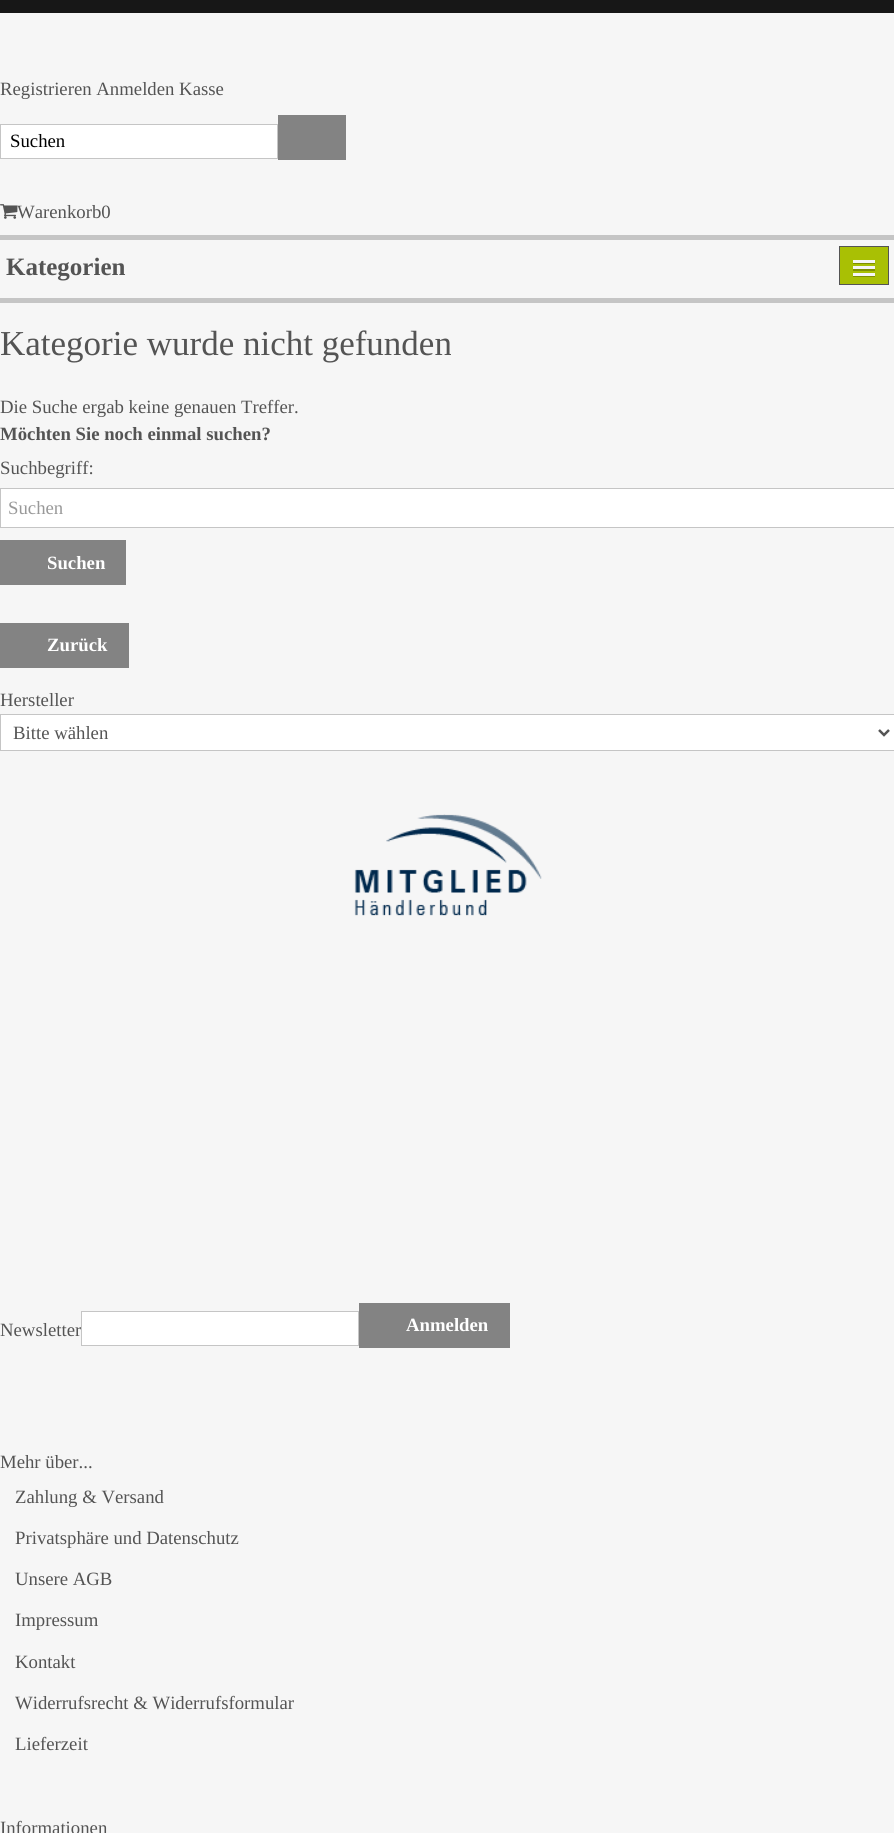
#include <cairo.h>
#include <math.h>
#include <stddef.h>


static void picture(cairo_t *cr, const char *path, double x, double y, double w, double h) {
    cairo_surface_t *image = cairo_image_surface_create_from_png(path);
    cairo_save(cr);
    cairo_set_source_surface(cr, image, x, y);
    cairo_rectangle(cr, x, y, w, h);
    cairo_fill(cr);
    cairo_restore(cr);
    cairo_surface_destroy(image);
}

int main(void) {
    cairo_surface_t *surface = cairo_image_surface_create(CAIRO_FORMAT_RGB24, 894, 1833);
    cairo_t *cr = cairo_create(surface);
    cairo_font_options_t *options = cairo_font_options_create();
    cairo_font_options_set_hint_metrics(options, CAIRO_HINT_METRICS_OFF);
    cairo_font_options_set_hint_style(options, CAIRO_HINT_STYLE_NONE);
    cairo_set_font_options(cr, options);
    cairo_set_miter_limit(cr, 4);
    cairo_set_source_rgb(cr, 0.961, 0.961, 0.961);
    cairo_paint(cr);
    cairo_set_source_rgb(cr, 0.09, 0.09, 0.09);
    cairo_rectangle(cr, 0, 0, 894, 13);
    cairo_fill(cr);
    cairo_select_font_face(cr, "Tinos", CAIRO_FONT_SLANT_NORMAL, CAIRO_FONT_WEIGHT_NORMAL);
    cairo_set_font_size(cr, 18.75);
    cairo_set_source_rgb(cr, 0.329, 0.329, 0.329);
    cairo_move_to(cr, 0, 95);
    cairo_show_text(cr, "Registrieren Anmelden Kasse");
    cairo_set_source_rgb(cr, 1, 1, 1);
    cairo_rectangle(cr, 0.5, 124.5, 277, 34);
    cairo_fill_preserve(cr);
    cairo_set_source_rgb(cr, 0.773, 0.773, 0.773);
    cairo_set_line_width(cr, 1);
    cairo_stroke(cr);
    cairo_set_source_rgb(cr, 0, 0, 0);
    cairo_move_to(cr, 10, 147);
    cairo_show_text(cr, "Suchen");
    cairo_set_source_rgb(cr, 0.514, 0.514, 0.514);
    cairo_rectangle(cr, 278, 115, 68, 45);
    cairo_fill(cr);
    picture(cr, "img1.png", 0, 204, 18, 15);
    cairo_set_source_rgb(cr, 0.329, 0.329, 0.329);
    cairo_move_to(cr, 17, 218);
    cairo_show_text(cr, "Warenkorb0");
    cairo_set_source_rgb(cr, 0.773, 0.773, 0.773);
    cairo_rectangle(cr, 0, 235, 894, 5);
    cairo_fill(cr);
    cairo_rectangle(cr, 0, 298, 894, 5);
    cairo_fill(cr);
    cairo_select_font_face(cr, "Tinos", CAIRO_FONT_SLANT_NORMAL, CAIRO_FONT_WEIGHT_BOLD);
    cairo_set_font_size(cr, 25);
    cairo_set_source_rgb(cr, 0.329, 0.329, 0.329);
    cairo_move_to(cr, 6, 275);
    cairo_show_text(cr, "Kategorien");
    cairo_set_source_rgb(cr, 0.663, 0.753, 0.016);
    cairo_rectangle(cr, 839.5, 246.5, 49, 38);
    cairo_fill_preserve(cr);
    cairo_set_source_rgb(cr, 0.329, 0.329, 0.329);
    cairo_stroke(cr);
    cairo_set_source_rgb(cr, 0.498, 0.565, 0.012);
    cairo_rectangle(cr, 853, 263, 22, 1);
    cairo_fill(cr);
    cairo_set_source_rgb(cr, 0.961, 0.961, 0.961);
    cairo_rectangle(cr, 853, 260, 22, 3);
    cairo_fill(cr);
    cairo_set_source_rgb(cr, 0.498, 0.565, 0.012);
    cairo_rectangle(cr, 853, 269, 22, 2);
    cairo_fill(cr);
    cairo_set_source_rgb(cr, 0.961, 0.961, 0.961);
    cairo_rectangle(cr, 853, 266, 22, 3);
    cairo_fill(cr);
    cairo_set_source_rgb(cr, 0.498, 0.565, 0.012);
    cairo_rectangle(cr, 853, 276, 22, 1);
    cairo_fill(cr);
    cairo_set_source_rgb(cr, 0.961, 0.961, 0.961);
    cairo_rectangle(cr, 853, 273, 22, 3);
    cairo_fill(cr);
    cairo_select_font_face(cr, "Tinos", CAIRO_FONT_SLANT_NORMAL, CAIRO_FONT_WEIGHT_NORMAL);
    cairo_set_font_size(cr, 35);
    cairo_set_source_rgb(cr, 0.329, 0.329, 0.329);
    cairo_move_to(cr, 0, 355);
    cairo_show_text(cr, "Kategorie wurde nicht gefunden");
    cairo_set_font_size(cr, 18.75);
    cairo_move_to(cr, 0, 413);
    cairo_show_text(cr, "Die Suche ergab keine genauen Treffer.");
    cairo_select_font_face(cr, "Tinos", CAIRO_FONT_SLANT_NORMAL, CAIRO_FONT_WEIGHT_BOLD);
    cairo_move_to(cr, 0, 440);
    cairo_show_text(cr, "Möchten Sie noch einmal suchen?");
    cairo_select_font_face(cr, "Tinos", CAIRO_FONT_SLANT_NORMAL, CAIRO_FONT_WEIGHT_NORMAL);
    cairo_move_to(cr, 0, 474);
    cairo_show_text(cr, "Suchbegriff:");
    cairo_set_source_rgb(cr, 1, 1, 1);
    cairo_rectangle(cr, 0.5, 488.5, 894, 39);
    cairo_fill_preserve(cr);
    cairo_set_source_rgb(cr, 0.773, 0.773, 0.773);
    cairo_stroke(cr);
    cairo_set_source_rgb(cr, 0.6, 0.6, 0.6);
    cairo_move_to(cr, 8, 514);
    cairo_show_text(cr, "Suchen");
    cairo_set_source_rgb(cr, 0.514, 0.514, 0.514);
    cairo_rectangle(cr, 0, 540, 126, 45);
    cairo_fill(cr);
    cairo_select_font_face(cr, "Tinos", CAIRO_FONT_SLANT_NORMAL, CAIRO_FONT_WEIGHT_BOLD);
    cairo_set_source_rgb(cr, 1, 1, 1);
    cairo_move_to(cr, 47, 569);
    cairo_show_text(cr, "Suchen");
    cairo_set_source_rgb(cr, 0.514, 0.514, 0.514);
    cairo_rectangle(cr, 0, 623, 129, 45);
    cairo_fill(cr);
    cairo_set_source_rgb(cr, 1, 1, 1);
    cairo_move_to(cr, 47, 651);
    cairo_show_text(cr, "Zurück");
    cairo_select_font_face(cr, "Tinos", CAIRO_FONT_SLANT_NORMAL, CAIRO_FONT_WEIGHT_NORMAL);
    cairo_set_source_rgb(cr, 0.329, 0.329, 0.329);
    cairo_move_to(cr, 0, 706);
    cairo_show_text(cr, "Hersteller");
    cairo_set_source_rgb(cr, 1, 1, 1);
    cairo_rectangle(cr, 0.5, 714.5, 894, 36);
    cairo_fill_preserve(cr);
    cairo_set_source_rgb(cr, 0.773, 0.773, 0.773);
    cairo_stroke(cr);
    cairo_new_path(cr);
    cairo_move_to(cr, 879, 730);
    cairo_line_to(cr, 884, 735);
    cairo_line_to(cr, 889, 730);
    cairo_set_source_rgb(cr, 0.329, 0.329, 0.329);
    cairo_set_line_width(cr, 2.5);
    cairo_stroke(cr);
    cairo_move_to(cr, 13, 739);
    cairo_show_text(cr, "Bitte wählen");
    picture(cr, "img2.png", 354, 814, 188, 102);
    cairo_move_to(cr, 0, 1336);
    cairo_show_text(cr, "Newsletter");
    cairo_set_source_rgb(cr, 1, 1, 1);
    cairo_rectangle(cr, 81.5, 1311.5, 277, 34);
    cairo_fill_preserve(cr);
    cairo_set_source_rgb(cr, 0.773, 0.773, 0.773);
    cairo_set_line_width(cr, 1);
    cairo_stroke(cr);
    cairo_set_source_rgb(cr, 0.514, 0.514, 0.514);
    cairo_rectangle(cr, 359, 1303, 151, 45);
    cairo_fill(cr);
    cairo_select_font_face(cr, "Tinos", CAIRO_FONT_SLANT_NORMAL, CAIRO_FONT_WEIGHT_BOLD);
    cairo_set_source_rgb(cr, 1, 1, 1);
    cairo_move_to(cr, 406, 1331);
    cairo_show_text(cr, "Anmelden");
    cairo_select_font_face(cr, "Tinos", CAIRO_FONT_SLANT_NORMAL, CAIRO_FONT_WEIGHT_NORMAL);
    cairo_set_source_rgb(cr, 0.329, 0.329, 0.329);
    cairo_move_to(cr, 0, 1468);
    cairo_show_text(cr, "Mehr über...");
    cairo_move_to(cr, 15, 1503);
    cairo_show_text(cr, "Zahlung & Versand");
    cairo_move_to(cr, 15, 1544);
    cairo_show_text(cr, "Privatsphäre und Datenschutz");
    cairo_move_to(cr, 15, 1585);
    cairo_show_text(cr, "Unsere AGB");
    cairo_move_to(cr, 15, 1626);
    cairo_show_text(cr, "Impressum");
    cairo_move_to(cr, 15, 1668);
    cairo_show_text(cr, "Kontakt");
    cairo_move_to(cr, 15, 1709);
    cairo_show_text(cr, "Widerrufsrecht & Widerrufsformular");
    cairo_move_to(cr, 15, 1750);
    cairo_show_text(cr, "Lieferzeit");
    cairo_move_to(cr, 0, 1834);
    cairo_show_text(cr, "Informationen");
    cairo_surface_write_to_png(surface, "page.png");
    cairo_font_options_destroy(options);
    cairo_destroy(cr);
    cairo_surface_destroy(surface);
    return 0;
}
